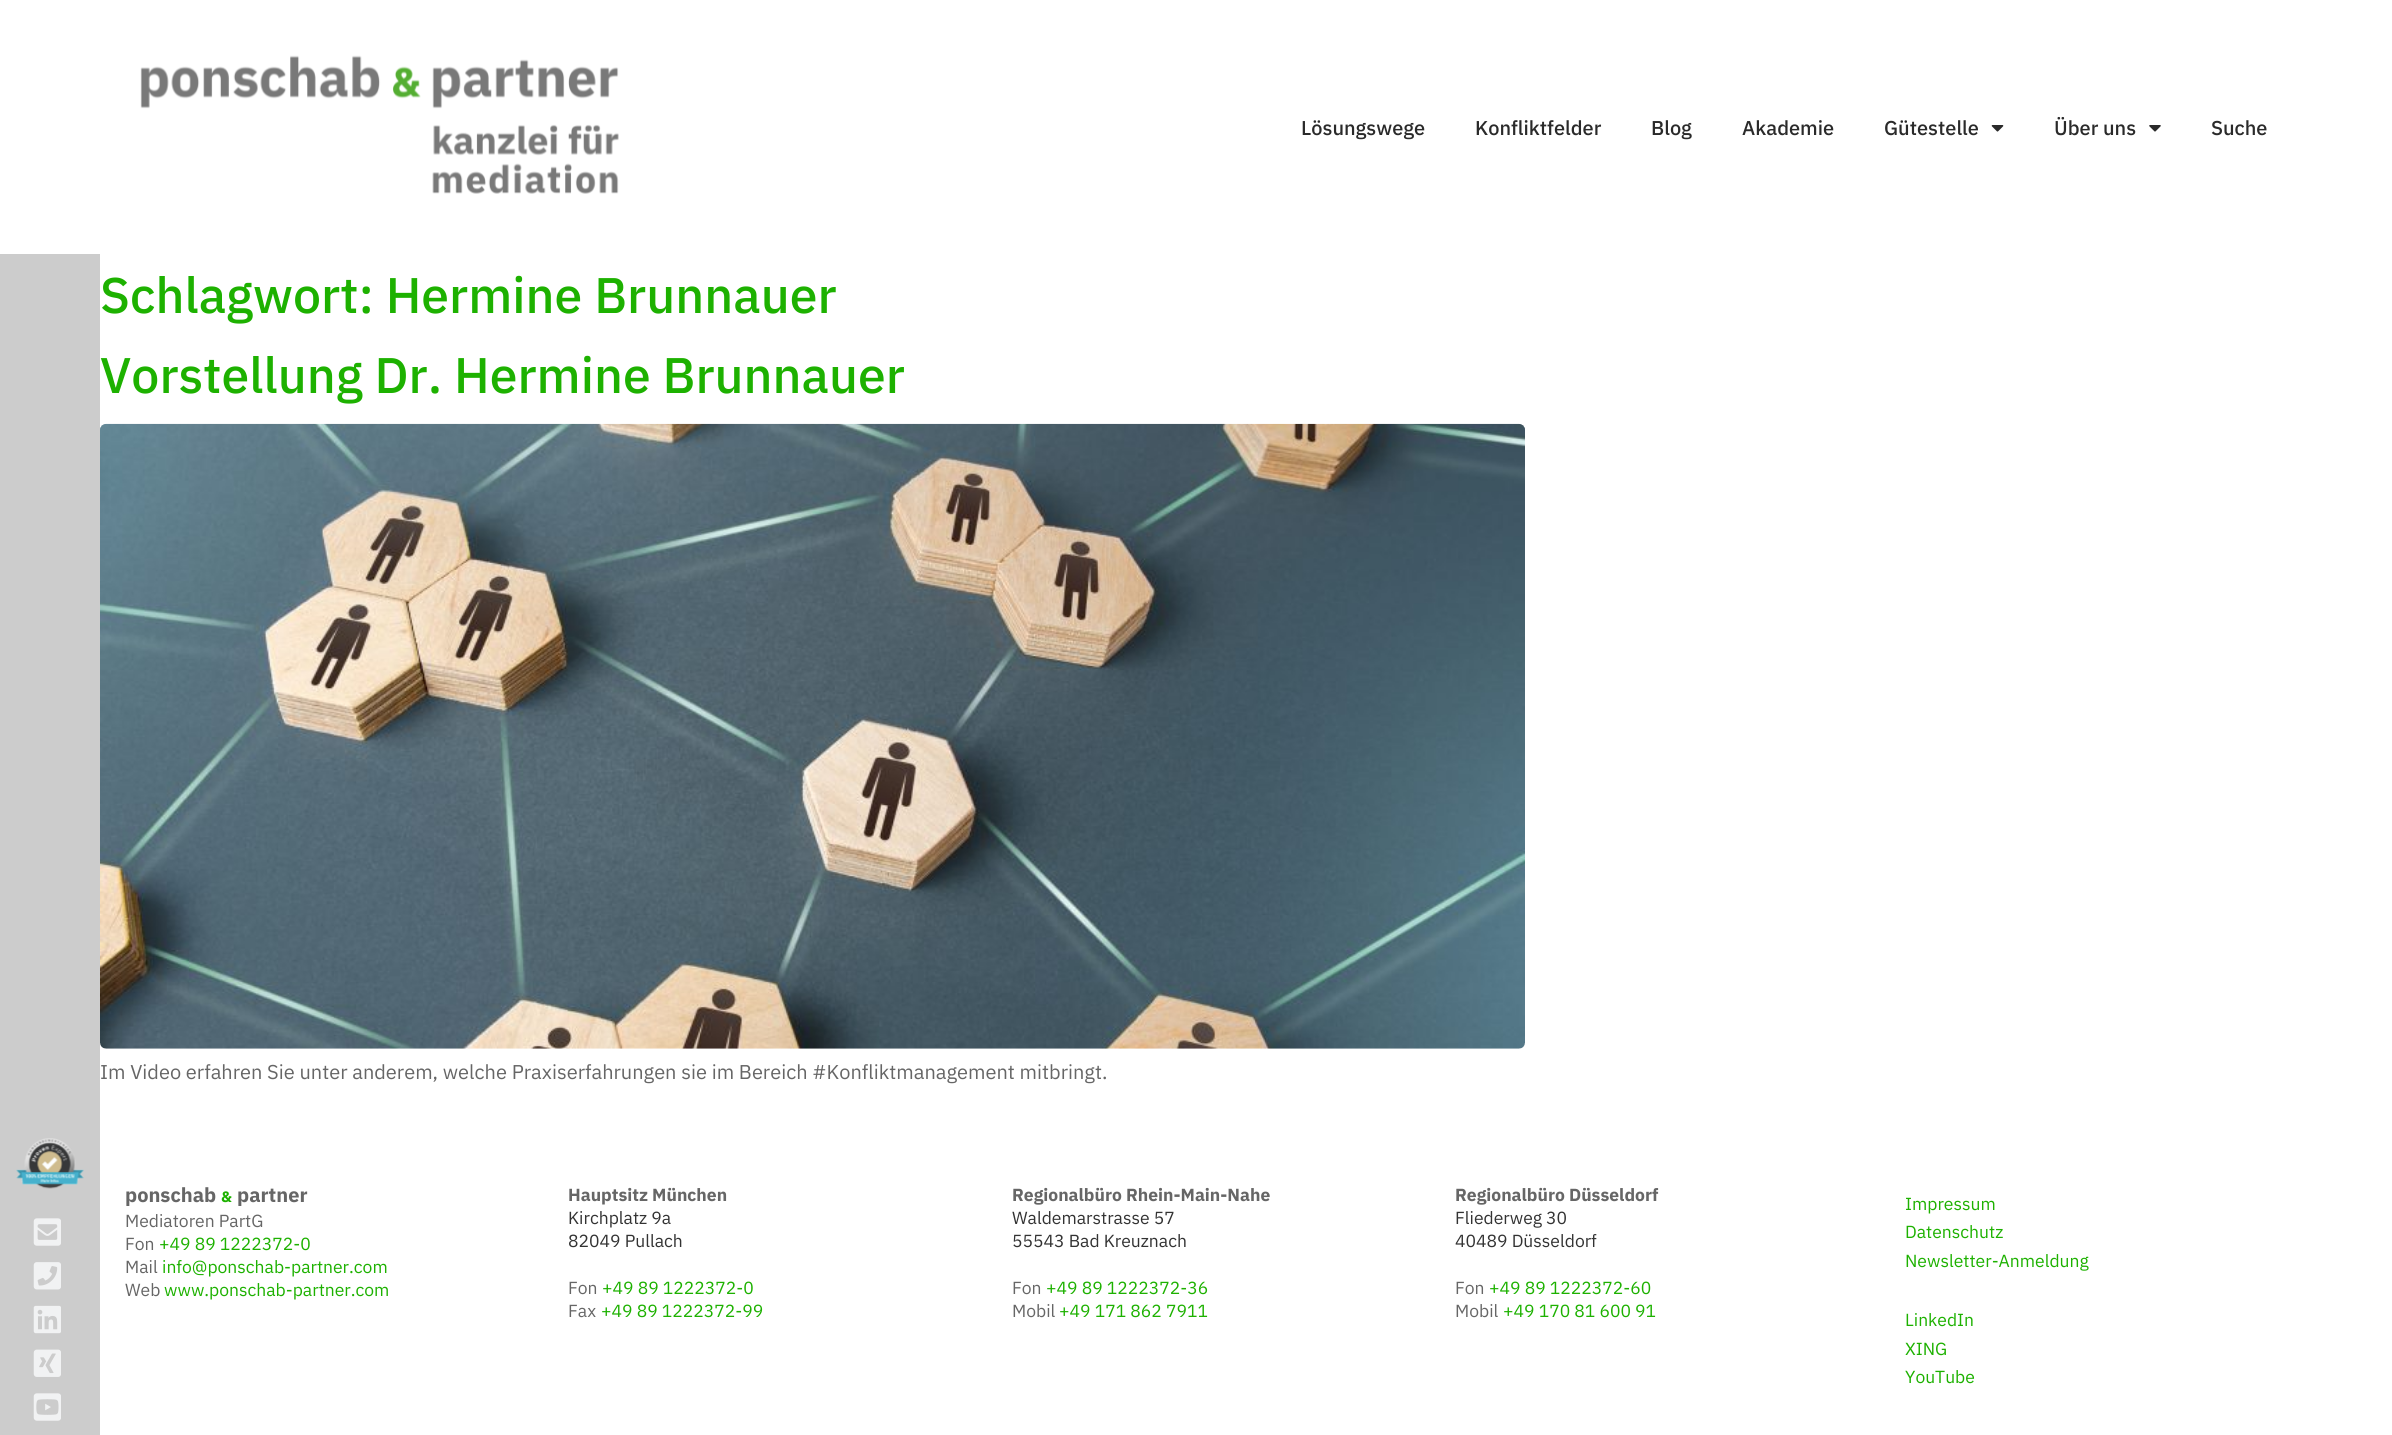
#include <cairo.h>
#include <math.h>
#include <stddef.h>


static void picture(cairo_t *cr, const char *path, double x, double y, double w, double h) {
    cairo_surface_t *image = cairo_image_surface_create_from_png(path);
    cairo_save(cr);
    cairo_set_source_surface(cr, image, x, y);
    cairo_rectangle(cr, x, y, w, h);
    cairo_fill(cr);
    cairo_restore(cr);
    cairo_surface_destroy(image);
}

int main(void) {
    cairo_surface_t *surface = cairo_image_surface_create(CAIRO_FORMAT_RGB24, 2392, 1435);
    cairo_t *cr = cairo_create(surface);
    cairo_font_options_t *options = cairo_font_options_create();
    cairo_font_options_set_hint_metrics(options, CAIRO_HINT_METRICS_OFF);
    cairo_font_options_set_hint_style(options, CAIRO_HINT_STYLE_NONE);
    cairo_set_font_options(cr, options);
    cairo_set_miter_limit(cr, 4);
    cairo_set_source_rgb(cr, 1, 1, 1);
    cairo_paint(cr);
    picture(cr, "img1.png", 140, 55, 479, 139);
    cairo_select_font_face(cr, "IBM Plex Sans Medium", CAIRO_FONT_SLANT_NORMAL, CAIRO_FONT_WEIGHT_NORMAL);
    cairo_set_font_size(cr, 20);
    cairo_set_source_rgb(cr, 0.165, 0.165, 0.165);
    cairo_move_to(cr, 1301, 135);
    cairo_show_text(cr, "Lösungswege");
    cairo_move_to(cr, 1475, 135);
    cairo_show_text(cr, "Konfliktfelder");
    cairo_move_to(cr, 1651, 135);
    cairo_show_text(cr, "Blog");
    cairo_move_to(cr, 1742, 135);
    cairo_show_text(cr, "Akademie");
    cairo_move_to(cr, 1884, 135);
    cairo_show_text(cr, "Gütestelle");
    picture(cr, "img2.png", 1991, 125, 13, 7);
    cairo_move_to(cr, 2054, 135);
    cairo_show_text(cr, "Über uns");
    picture(cr, "img3.png", 2149, 125, 12, 7);
    cairo_move_to(cr, 2211, 135);
    cairo_show_text(cr, "Suche");
    cairo_set_source_rgb(cr, 0.8, 0.8, 0.8);
    cairo_rectangle(cr, 0, 254, 100, 1181);
    cairo_fill(cr);
    picture(cr, "img4.png", 16, 1138, 68, 51);
    picture(cr, "img5.png", 33, 1218, 28, 28);
    picture(cr, "img6.png", 33, 1262, 28, 28);
    picture(cr, "img7.png", 33, 1305, 28, 29);
    picture(cr, "img8.png", 33, 1349, 28, 28);
    picture(cr, "img9.png", 33, 1393, 28, 28);
    cairo_set_font_size(cr, 50);
    cairo_set_source_rgb(cr, 0.114, 0.694, 0);
    cairo_move_to(cr, 100, 313);
    cairo_show_text(cr, "Schlagwort: Hermine Brunnauer");
    cairo_move_to(cr, 100, 393);
    cairo_show_text(cr, "Vorstellung Dr. Hermine Brunnauer");
    picture(cr, "img10.png", 100, 423, 1425, 626);
    cairo_select_font_face(cr, "IBM Plex Sans", CAIRO_FONT_SLANT_NORMAL, CAIRO_FONT_WEIGHT_NORMAL);
    cairo_set_font_size(cr, 20);
    cairo_set_source_rgb(cr, 0.4, 0.4, 0.4);
    cairo_move_to(cr, 100, 1079);
    cairo_show_text(cr, "Im Video erfahren Sie unter anderem, welche Praxiserfahrungen sie im Bereich #Konfliktmanagement mitbringt.");
    cairo_select_font_face(cr, "IBM Plex Sans", CAIRO_FONT_SLANT_NORMAL, CAIRO_FONT_WEIGHT_BOLD);
    cairo_move_to(cr, 125, 1202);
    cairo_show_text(cr, "ponschab");
    cairo_set_font_size(cr, 15);
    cairo_set_source_rgb(cr, 0.114, 0.694, 0);
    cairo_move_to(cr, 221, 1202);
    cairo_show_text(cr, "&");
    cairo_set_font_size(cr, 20);
    cairo_set_source_rgb(cr, 0.4, 0.4, 0.4);
    cairo_move_to(cr, 237, 1202);
    cairo_show_text(cr, "partner");
    cairo_select_font_face(cr, "IBM Plex Sans", CAIRO_FONT_SLANT_NORMAL, CAIRO_FONT_WEIGHT_NORMAL);
    cairo_set_font_size(cr, 17.5);
    cairo_move_to(cr, 125, 1227);
    cairo_show_text(cr, "Mediatoren PartG");
    cairo_move_to(cr, 125, 1250);
    cairo_show_text(cr, "Fon");
    cairo_set_source_rgb(cr, 0.114, 0.694, 0);
    cairo_move_to(cr, 159, 1250);
    cairo_show_text(cr, "+49 89 1222372-0");
    cairo_set_source_rgb(cr, 0.4, 0.4, 0.4);
    cairo_move_to(cr, 125, 1273);
    cairo_show_text(cr, "Mail");
    cairo_set_source_rgb(cr, 0.114, 0.694, 0);
    cairo_move_to(cr, 162, 1273);
    cairo_show_text(cr, "info@ponschab-partner.com");
    cairo_set_source_rgb(cr, 0.4, 0.4, 0.4);
    cairo_move_to(cr, 125, 1296);
    cairo_show_text(cr, "Web");
    cairo_set_source_rgb(cr, 0.114, 0.694, 0);
    cairo_move_to(cr, 164, 1296);
    cairo_show_text(cr, "www.ponschab-partner.com");
    cairo_select_font_face(cr, "IBM Plex Sans", CAIRO_FONT_SLANT_NORMAL, CAIRO_FONT_WEIGHT_BOLD);
    cairo_set_source_rgb(cr, 0.4, 0.4, 0.4);
    cairo_move_to(cr, 568, 1201);
    cairo_show_text(cr, "Hauptsitz München");
    cairo_select_font_face(cr, "IBM Plex Sans", CAIRO_FONT_SLANT_NORMAL, CAIRO_FONT_WEIGHT_NORMAL);
    cairo_set_source_rgb(cr, 0.2, 0.2, 0.2);
    cairo_move_to(cr, 568, 1224);
    cairo_show_text(cr, "Kirchplatz 9a");
    cairo_move_to(cr, 568, 1247);
    cairo_show_text(cr, "82049 Pullach");
    cairo_set_source_rgb(cr, 0.4, 0.4, 0.4);
    cairo_move_to(cr, 568, 1294);
    cairo_show_text(cr, "Fon");
    cairo_set_source_rgb(cr, 0.114, 0.694, 0);
    cairo_move_to(cr, 602, 1294);
    cairo_show_text(cr, "+49 89 1222372-0");
    cairo_set_source_rgb(cr, 0.4, 0.4, 0.4);
    cairo_move_to(cr, 568, 1317);
    cairo_show_text(cr, "Fax");
    cairo_set_source_rgb(cr, 0.114, 0.694, 0);
    cairo_move_to(cr, 601, 1317);
    cairo_show_text(cr, "+49 89 1222372-99");
    cairo_select_font_face(cr, "IBM Plex Sans", CAIRO_FONT_SLANT_NORMAL, CAIRO_FONT_WEIGHT_BOLD);
    cairo_set_source_rgb(cr, 0.4, 0.4, 0.4);
    cairo_move_to(cr, 1012, 1201);
    cairo_show_text(cr, "Regionalbüro Rhein-Main-Nahe");
    cairo_select_font_face(cr, "IBM Plex Sans", CAIRO_FONT_SLANT_NORMAL, CAIRO_FONT_WEIGHT_NORMAL);
    cairo_set_source_rgb(cr, 0.2, 0.2, 0.2);
    cairo_move_to(cr, 1012, 1224);
    cairo_show_text(cr, "Waldemarstrasse 57");
    cairo_move_to(cr, 1012, 1247);
    cairo_show_text(cr, "55543 Bad Kreuznach");
    cairo_set_source_rgb(cr, 0.4, 0.4, 0.4);
    cairo_move_to(cr, 1012, 1294);
    cairo_show_text(cr, "Fon");
    cairo_set_source_rgb(cr, 0.114, 0.694, 0);
    cairo_move_to(cr, 1046, 1294);
    cairo_show_text(cr, "+49 89 1222372-36");
    cairo_set_source_rgb(cr, 0.4, 0.4, 0.4);
    cairo_move_to(cr, 1012, 1317);
    cairo_show_text(cr, "Mobil");
    cairo_set_source_rgb(cr, 0.114, 0.694, 0);
    cairo_move_to(cr, 1059, 1317);
    cairo_show_text(cr, "+49 171 862 7911");
    cairo_select_font_face(cr, "IBM Plex Sans", CAIRO_FONT_SLANT_NORMAL, CAIRO_FONT_WEIGHT_BOLD);
    cairo_set_source_rgb(cr, 0.4, 0.4, 0.4);
    cairo_move_to(cr, 1455, 1201);
    cairo_show_text(cr, "Regionalbüro Düsseldorf");
    cairo_select_font_face(cr, "IBM Plex Sans", CAIRO_FONT_SLANT_NORMAL, CAIRO_FONT_WEIGHT_NORMAL);
    cairo_set_source_rgb(cr, 0.2, 0.2, 0.2);
    cairo_move_to(cr, 1455, 1224);
    cairo_show_text(cr, "Fliederweg 30");
    cairo_move_to(cr, 1455, 1247);
    cairo_show_text(cr, "40489 Düsseldorf");
    cairo_set_source_rgb(cr, 0.4, 0.4, 0.4);
    cairo_move_to(cr, 1455, 1294);
    cairo_show_text(cr, "Fon");
    cairo_set_source_rgb(cr, 0.114, 0.694, 0);
    cairo_move_to(cr, 1489, 1294);
    cairo_show_text(cr, "+49 89 1222372-60");
    cairo_set_source_rgb(cr, 0.4, 0.4, 0.4);
    cairo_move_to(cr, 1455, 1317);
    cairo_show_text(cr, "Mobil");
    cairo_set_source_rgb(cr, 0.114, 0.694, 0);
    cairo_move_to(cr, 1503, 1317);
    cairo_show_text(cr, "+49 170 81 600 91");
    cairo_move_to(cr, 1905, 1210);
    cairo_show_text(cr, "Impressum");
    cairo_move_to(cr, 1905, 1238);
    cairo_show_text(cr, "Datenschutz");
    cairo_move_to(cr, 1905, 1267);
    cairo_show_text(cr, "Newsletter-Anmeldung");
    cairo_move_to(cr, 1905, 1326);
    cairo_show_text(cr, "LinkedIn");
    cairo_move_to(cr, 1905, 1355);
    cairo_show_text(cr, "XING");
    cairo_move_to(cr, 1905, 1383);
    cairo_show_text(cr, "YouTube");
    cairo_surface_write_to_png(surface, "page.png");
    cairo_font_options_destroy(options);
    cairo_destroy(cr);
    cairo_surface_destroy(surface);
    return 0;
}
